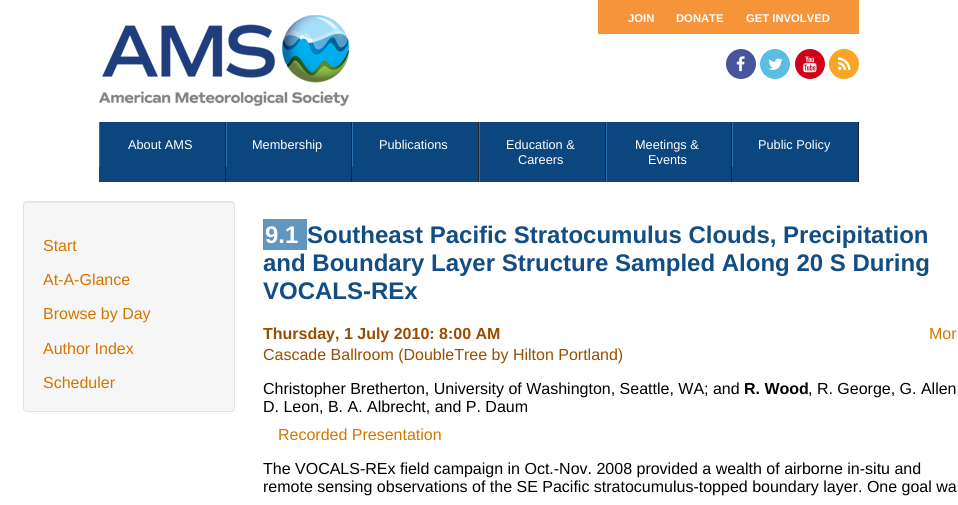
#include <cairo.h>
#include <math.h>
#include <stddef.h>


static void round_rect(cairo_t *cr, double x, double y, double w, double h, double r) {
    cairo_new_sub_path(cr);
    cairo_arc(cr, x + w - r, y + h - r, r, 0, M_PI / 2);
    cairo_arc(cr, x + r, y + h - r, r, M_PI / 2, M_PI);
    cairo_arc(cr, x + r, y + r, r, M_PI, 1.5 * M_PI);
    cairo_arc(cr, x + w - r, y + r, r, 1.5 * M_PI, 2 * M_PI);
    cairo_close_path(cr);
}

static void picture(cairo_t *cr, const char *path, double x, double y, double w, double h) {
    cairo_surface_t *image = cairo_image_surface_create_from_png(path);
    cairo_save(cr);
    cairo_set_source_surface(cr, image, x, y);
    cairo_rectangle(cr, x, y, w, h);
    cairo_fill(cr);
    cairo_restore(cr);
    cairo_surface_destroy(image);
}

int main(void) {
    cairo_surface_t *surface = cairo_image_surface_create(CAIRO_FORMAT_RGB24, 958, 505);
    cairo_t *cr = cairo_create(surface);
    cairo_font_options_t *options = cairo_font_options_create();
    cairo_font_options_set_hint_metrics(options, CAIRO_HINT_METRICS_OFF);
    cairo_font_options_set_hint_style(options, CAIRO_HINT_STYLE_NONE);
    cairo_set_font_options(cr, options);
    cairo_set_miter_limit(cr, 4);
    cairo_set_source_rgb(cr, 1, 1, 1);
    cairo_paint(cr);
    picture(cr, "img1.png", 99, 15, 250, 91);
    cairo_set_source_rgb(cr, 0.961, 0.58, 0.227);
    cairo_rectangle(cr, 598, 0, 261, 34);
    cairo_fill(cr);
    cairo_select_font_face(cr, "Liberation Sans", CAIRO_FONT_SLANT_NORMAL, CAIRO_FONT_WEIGHT_BOLD);
    cairo_set_font_size(cr, 11.25);
    cairo_set_source_rgb(cr, 1, 1, 1);
    cairo_move_to(cr, 628, 22);
    cairo_show_text(cr, "JOIN");
    cairo_move_to(cr, 676, 22);
    cairo_show_text(cr, "DONATE");
    cairo_move_to(cr, 746, 22);
    cairo_show_text(cr, "GET INVOLVED");
    cairo_set_source_rgb(cr, 0.282, 0.333, 0.616);
    cairo_new_path(cr);
    cairo_arc(cr, 741, 64, 15, 0, 2 * M_PI);
    cairo_fill(cr);
    picture(cr, "img2.png", 736, 56, 9, 16);
    cairo_set_source_rgb(cr, 0.349, 0.745, 0.882);
    cairo_arc(cr, 775, 64, 15, 0, 2 * M_PI);
    cairo_fill(cr);
    picture(cr, "img3.png", 768, 58, 15, 12);
    cairo_set_source_rgb(cr, 0.816, 0.008, 0.106);
    cairo_arc(cr, 810, 64, 15, 0, 2 * M_PI);
    cairo_fill(cr);
    picture(cr, "img4.png", 803, 56, 14, 17);
    cairo_set_source_rgb(cr, 0.961, 0.651, 0.137);
    cairo_arc(cr, 844, 64, 15, 0, 2 * M_PI);
    cairo_fill(cr);
    picture(cr, "img5.png", 838, 57, 13, 13);
    cairo_set_source_rgb(cr, 0.043, 0.275, 0.498);
    cairo_rectangle(cr, 99, 122, 759, 60);
    cairo_fill(cr);
    cairo_set_source_rgb(cr, 0.133, 0.133, 0.133);
    cairo_rectangle(cr, 225, 122, 1, 60);
    cairo_fill(cr);
    cairo_set_source_rgb(cr, 0.173, 0.439, 0.686);
    cairo_rectangle(cr, 99, 122, 1, 45);
    cairo_fill(cr);
    cairo_select_font_face(cr, "Liberation Sans", CAIRO_FONT_SLANT_NORMAL, CAIRO_FONT_WEIGHT_NORMAL);
    cairo_set_font_size(cr, 12.75);
    cairo_set_source_rgb(cr, 1, 1, 1);
    cairo_move_to(cr, 128, 149);
    cairo_show_text(cr, "About AMS");
    cairo_set_source_rgb(cr, 0.133, 0.133, 0.133);
    cairo_rectangle(cr, 351, 122, 1, 60);
    cairo_fill(cr);
    cairo_set_source_rgb(cr, 0.173, 0.439, 0.686);
    cairo_rectangle(cr, 226, 122, 1, 45);
    cairo_fill(cr);
    cairo_set_source_rgb(cr, 1, 1, 1);
    cairo_move_to(cr, 252, 149);
    cairo_show_text(cr, "Membership");
    cairo_set_source_rgb(cr, 0.133, 0.133, 0.133);
    cairo_rectangle(cr, 478, 122, 1, 60);
    cairo_fill(cr);
    cairo_set_source_rgb(cr, 0.173, 0.439, 0.686);
    cairo_rectangle(cr, 352, 122, 1, 45);
    cairo_fill(cr);
    cairo_set_source_rgb(cr, 1, 1, 1);
    cairo_move_to(cr, 379, 149);
    cairo_show_text(cr, "Publications");
    cairo_set_source_rgb(cr, 0.133, 0.133, 0.133);
    cairo_rectangle(cr, 605, 122, 1, 60);
    cairo_fill(cr);
    cairo_set_source_rgb(cr, 0.173, 0.439, 0.686);
    cairo_rectangle(cr, 479, 122, 1, 60);
    cairo_fill(cr);
    cairo_set_source_rgb(cr, 1, 1, 1);
    cairo_move_to(cr, 506, 149);
    cairo_show_text(cr, "Education &");
    cairo_move_to(cr, 518, 164);
    cairo_show_text(cr, "Careers");
    cairo_set_source_rgb(cr, 0.133, 0.133, 0.133);
    cairo_rectangle(cr, 731, 122, 1, 60);
    cairo_fill(cr);
    cairo_set_source_rgb(cr, 0.173, 0.439, 0.686);
    cairo_rectangle(cr, 606, 122, 1, 60);
    cairo_fill(cr);
    cairo_set_source_rgb(cr, 1, 1, 1);
    cairo_move_to(cr, 635, 149);
    cairo_show_text(cr, "Meetings &");
    cairo_move_to(cr, 648, 164);
    cairo_show_text(cr, "Events");
    cairo_set_source_rgb(cr, 0.133, 0.133, 0.133);
    cairo_rectangle(cr, 858, 122, 1, 60);
    cairo_fill(cr);
    cairo_set_source_rgb(cr, 0.173, 0.439, 0.686);
    cairo_rectangle(cr, 732, 122, 1, 45);
    cairo_fill(cr);
    cairo_set_source_rgb(cr, 1, 1, 1);
    cairo_move_to(cr, 758, 149);
    cairo_show_text(cr, "Public Policy");
    cairo_set_source_rgb(cr, 0.961, 0.961, 0.961);
    round_rect(cr, 23, 201, 212, 211, 4);
    cairo_fill(cr);
    cairo_set_source_rgb(cr, 0.914, 0.914, 0.914);
    cairo_new_path(cr);
    cairo_move_to(cr, 27, 203);
    cairo_line_to(cr, 231, 203);
    cairo_curve_to(cr, 233, 203, 234, 204, 234, 206);
    cairo_line_to(cr, 234, 205);
    cairo_curve_to(cr, 234, 203, 233, 202, 231, 202);
    cairo_line_to(cr, 27, 202);
    cairo_curve_to(cr, 25, 202, 24, 203, 24, 205);
    cairo_line_to(cr, 24, 206);
    cairo_curve_to(cr, 24, 204, 25, 203, 27, 203);
    cairo_close_path(cr);
    cairo_fill(cr);
    round_rect(cr, 23.5, 201.5, 211, 210, 3.5);
    cairo_set_source_rgb(cr, 0.89, 0.89, 0.89);
    cairo_set_line_width(cr, 1);
    cairo_stroke(cr);
    cairo_set_font_size(cr, 16);
    cairo_set_source_rgb(cr, 0.831, 0.459, 0);
    cairo_move_to(cr, 43, 251);
    cairo_show_text(cr, "Start");
    cairo_move_to(cr, 43, 285);
    cairo_show_text(cr, "At-A-Glance");
    cairo_move_to(cr, 43, 319);
    cairo_show_text(cr, "Browse by Day");
    cairo_move_to(cr, 43, 354);
    cairo_show_text(cr, "Author Index");
    cairo_move_to(cr, 43, 388);
    cairo_show_text(cr, "Scheduler");
    cairo_set_source_rgb(cr, 0.376, 0.588, 0.749);
    cairo_rectangle(cr, 263, 219, 44, 31);
    cairo_fill(cr);
    cairo_select_font_face(cr, "Liberation Sans", CAIRO_FONT_SLANT_NORMAL, CAIRO_FONT_WEIGHT_BOLD);
    cairo_set_font_size(cr, 24);
    cairo_set_source_rgb(cr, 1, 1, 1);
    cairo_move_to(cr, 265, 243);
    cairo_show_text(cr, "9.1");
    cairo_set_source_rgb(cr, 0.071, 0.302, 0.518);
    cairo_move_to(cr, 307, 243);
    cairo_show_text(cr, "Southeast Pacific Stratocumulus Clouds, Precipitation");
    cairo_move_to(cr, 263, 271);
    cairo_show_text(cr, "and Boundary Layer Structure Sampled Along 20 S During");
    cairo_move_to(cr, 263, 299);
    cairo_show_text(cr, "VOCALS-REx");
    cairo_set_font_size(cr, 16);
    cairo_set_source_rgb(cr, 0.6, 0.302, 0);
    cairo_move_to(cr, 263, 339);
    cairo_show_text(cr, "Thursday, 1 July 2010: 8:00 AM");
    cairo_select_font_face(cr, "Liberation Sans", CAIRO_FONT_SLANT_NORMAL, CAIRO_FONT_WEIGHT_NORMAL);
    cairo_set_source_rgb(cr, 0.831, 0.459, 0);
    cairo_move_to(cr, 929, 339);
    cairo_show_text(cr, "Mor");
    cairo_set_source_rgb(cr, 0.6, 0.302, 0);
    cairo_move_to(cr, 263, 360);
    cairo_show_text(cr, "Cascade Ballroom (DoubleTree by Hilton Portland)");
    cairo_set_source_rgb(cr, 0, 0, 0);
    cairo_move_to(cr, 263, 394);
    cairo_show_text(cr, "Christopher Bretherton, University of Washington, Seattle, WA; and");
    cairo_select_font_face(cr, "Liberation Sans", CAIRO_FONT_SLANT_NORMAL, CAIRO_FONT_WEIGHT_BOLD);
    cairo_move_to(cr, 744, 394);
    cairo_show_text(cr, "R. Wood");
    cairo_select_font_face(cr, "Liberation Sans", CAIRO_FONT_SLANT_NORMAL, CAIRO_FONT_WEIGHT_NORMAL);
    cairo_move_to(cr, 808, 394);
    cairo_show_text(cr, ", R. George, G. Allen");
    cairo_move_to(cr, 263, 412);
    cairo_show_text(cr, "D. Leon, B. A. Albrecht, and P. Daum");
    cairo_set_source_rgb(cr, 0.831, 0.459, 0);
    cairo_move_to(cr, 278, 440);
    cairo_show_text(cr, "Recorded Presentation");
    cairo_set_source_rgb(cr, 0, 0, 0);
    cairo_move_to(cr, 263, 474);
    cairo_show_text(cr, "The VOCALS-REx field campaign in Oct.-Nov. 2008 provided a wealth of airborne in-situ and");
    cairo_move_to(cr, 263, 492);
    cairo_show_text(cr, "remote sensing observations of the SE Pacific stratocumulus-topped boundary layer. One goal wa");
    cairo_surface_write_to_png(surface, "page.png");
    cairo_font_options_destroy(options);
    cairo_destroy(cr);
    cairo_surface_destroy(surface);
    return 0;
}
